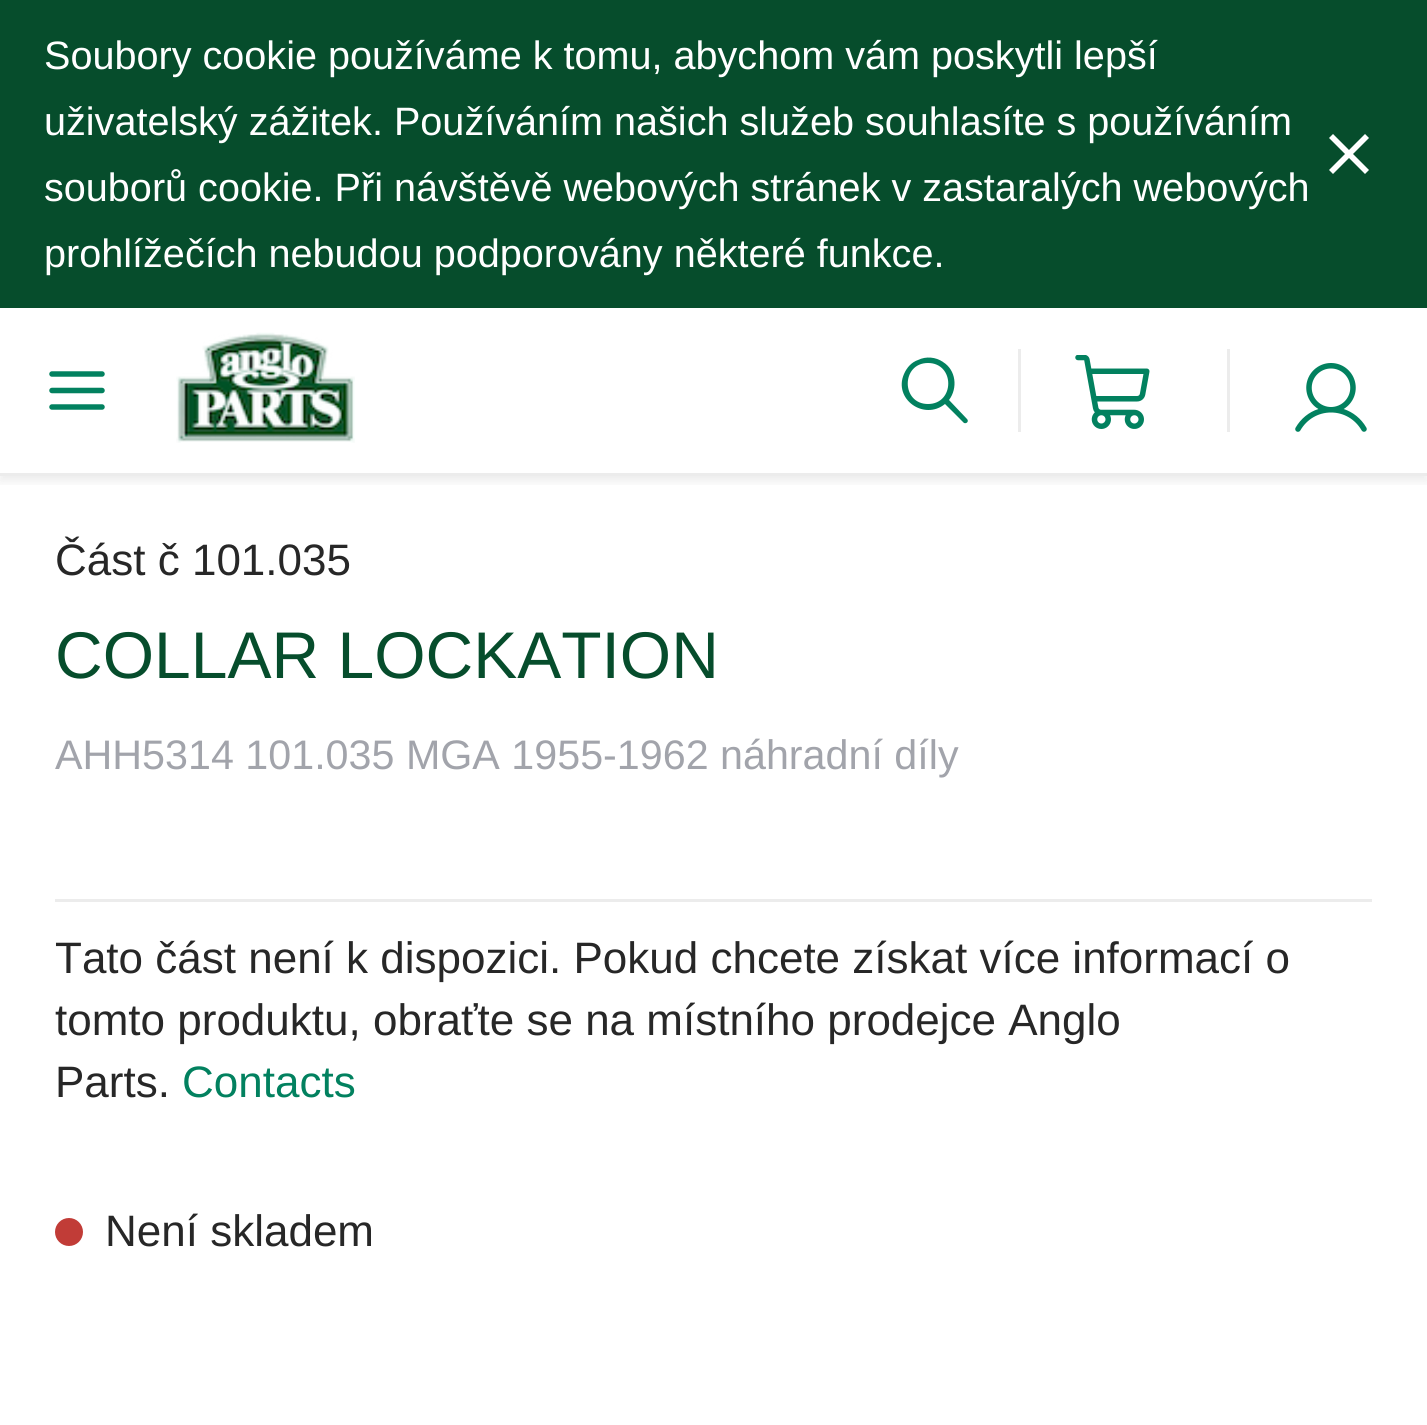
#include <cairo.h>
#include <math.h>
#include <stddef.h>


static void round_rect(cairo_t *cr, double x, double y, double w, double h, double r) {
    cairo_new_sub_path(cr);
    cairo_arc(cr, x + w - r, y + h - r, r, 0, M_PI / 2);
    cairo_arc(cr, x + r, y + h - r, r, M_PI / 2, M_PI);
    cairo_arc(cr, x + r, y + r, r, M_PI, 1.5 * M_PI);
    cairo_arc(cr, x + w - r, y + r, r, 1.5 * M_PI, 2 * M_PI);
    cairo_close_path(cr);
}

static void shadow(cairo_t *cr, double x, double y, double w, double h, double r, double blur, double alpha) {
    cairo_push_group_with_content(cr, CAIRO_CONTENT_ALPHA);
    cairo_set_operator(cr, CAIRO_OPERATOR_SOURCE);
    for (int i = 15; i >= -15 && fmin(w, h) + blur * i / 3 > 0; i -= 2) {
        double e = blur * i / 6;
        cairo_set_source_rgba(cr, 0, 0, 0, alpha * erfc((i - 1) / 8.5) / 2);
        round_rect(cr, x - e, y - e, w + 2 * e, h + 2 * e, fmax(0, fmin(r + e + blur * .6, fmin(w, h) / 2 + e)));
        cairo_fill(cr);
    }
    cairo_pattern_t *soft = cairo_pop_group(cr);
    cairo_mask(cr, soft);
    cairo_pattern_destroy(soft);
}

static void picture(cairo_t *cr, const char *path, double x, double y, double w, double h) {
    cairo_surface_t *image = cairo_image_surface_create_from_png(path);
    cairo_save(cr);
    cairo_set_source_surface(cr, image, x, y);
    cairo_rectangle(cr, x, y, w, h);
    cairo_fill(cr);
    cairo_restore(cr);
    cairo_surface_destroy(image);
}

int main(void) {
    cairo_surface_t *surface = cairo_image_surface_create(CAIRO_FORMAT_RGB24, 1427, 1425);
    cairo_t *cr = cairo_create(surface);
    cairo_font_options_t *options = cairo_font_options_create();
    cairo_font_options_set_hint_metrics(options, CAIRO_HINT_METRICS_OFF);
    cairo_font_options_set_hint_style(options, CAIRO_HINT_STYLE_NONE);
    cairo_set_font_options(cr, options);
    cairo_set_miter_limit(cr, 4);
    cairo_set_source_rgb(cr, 1, 1, 1);
    cairo_paint(cr);
    cairo_save(cr);
    cairo_rectangle(cr, 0, 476, 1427, 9);
    cairo_clip(cr);
    cairo_set_source_rgb(cr, 0, 0, 0);
    shadow(cr, 0, 6, 1427, 475, 0, 5.5, 0.08);
    cairo_restore(cr);
    cairo_set_source_rgb(cr, 0.925, 0.925, 0.925);
    cairo_rectangle(cr, 0, 473, 1427, 3);
    cairo_fill(cr);
    cairo_set_source_rgb(cr, 0.024, 0.302, 0.173);
    cairo_rectangle(cr, 0, 0, 1427, 308);
    cairo_fill(cr);
    cairo_select_font_face(cr, "Liberation Sans", CAIRO_FONT_SLANT_NORMAL, CAIRO_FONT_WEIGHT_NORMAL);
    cairo_set_font_size(cr, 39.6);
    cairo_set_source_rgb(cr, 1, 1, 1);
    cairo_move_to(cr, 44, 69);
    cairo_show_text(cr, "Soubory cookie používáme k tomu, abychom vám poskytli lepší");
    cairo_move_to(cr, 44, 135);
    cairo_show_text(cr, "uživatelský zážitek. Používáním našich služeb souhlasíte s používáním");
    cairo_new_path(cr);
    cairo_move_to(cr, 1369, 138);
    cairo_line_to(cr, 1365, 134);
    cairo_line_to(cr, 1349, 150);
    cairo_line_to(cr, 1333, 134);
    cairo_line_to(cr, 1329, 138);
    cairo_line_to(cr, 1345, 154);
    cairo_line_to(cr, 1329, 170);
    cairo_line_to(cr, 1333, 174);
    cairo_line_to(cr, 1349, 158);
    cairo_line_to(cr, 1365, 174);
    cairo_line_to(cr, 1369, 170);
    cairo_line_to(cr, 1353, 154);
    cairo_close_path(cr);
    cairo_fill(cr);
    cairo_move_to(cr, 44, 201);
    cairo_show_text(cr, "souborů cookie. Při návštěvě webových stránek v zastaralých webových");
    cairo_move_to(cr, 44, 267);
    cairo_show_text(cr, "prohlížečích nebudou podporovány některé funkce.");
    cairo_new_path(cr);
    cairo_move_to(cr, 52, 390.5);
    cairo_line_to(cr, 102, 390.5);
    cairo_move_to(cr, 52, 374);
    cairo_line_to(cr, 102, 374);
    cairo_move_to(cr, 52, 407);
    cairo_line_to(cr, 102, 407);
    cairo_set_source_rgb(cr, 0.008, 0.506, 0.373);
    cairo_set_line_width(cr, 5.5);
    cairo_set_line_cap(cr, CAIRO_LINE_CAP_ROUND);
    cairo_set_line_join(cr, CAIRO_LINE_JOIN_ROUND);
    cairo_stroke(cr);
    picture(cr, "img1.png", 176, 332, 179, 111);
    cairo_new_path(cr);
    cairo_move_to(cr, 967, 419);
    cairo_line_to(cr, 949, 400);
    cairo_curve_to(cr, 958, 388, 956, 370, 943, 362);
    cairo_curve_to(cr, 936, 357, 926, 356, 918, 360);
    cairo_curve_to(cr, 912, 362, 907, 367, 904, 374);
    cairo_curve_to(cr, 893, 399, 924, 421, 945, 404);
    cairo_line_to(cr, 964, 423);
    cairo_curve_to(cr, 967, 424, 969, 421, 967, 419);
    cairo_close_path(cr);
    cairo_move_to(cr, 928, 404);
    cairo_curve_to(cr, 901, 404, 901, 363, 928, 363);
    cairo_curve_to(cr, 955, 363, 955, 404, 928, 404);
    cairo_close_path(cr);
    cairo_fill(cr);
    cairo_set_source_rgb(cr, 0.925, 0.925, 0.925);
    cairo_rectangle(cr, 1018, 349, 3, 83);
    cairo_fill(cr);
    picture(cr, "img2.png", 1075, 355, 75, 74);
    cairo_rectangle(cr, 1227, 349, 3, 83);
    cairo_fill(cr);
    picture(cr, "img3.png", 1295, 363, 72, 69);
    cairo_set_font_size(cr, 44);
    cairo_set_source_rgb(cr, 0.153, 0.153, 0.153);
    cairo_move_to(cr, 55, 575);
    cairo_show_text(cr, "Část č 101.035");
    cairo_set_source_rgb(cr, 0.925, 0.925, 0.925);
    cairo_rectangle(cr, 55, 899, 1317, 3);
    cairo_fill(cr);
    cairo_set_font_size(cr, 66);
    cairo_set_source_rgb(cr, 0.024, 0.302, 0.173);
    cairo_move_to(cr, 55, 678);
    cairo_show_text(cr, "COLLAR LOCKATION");
    cairo_set_font_size(cr, 41.25);
    cairo_set_source_rgb(cr, 0.635, 0.643, 0.671);
    cairo_move_to(cr, 55, 769);
    cairo_show_text(cr, "AHH5314 101.035 MGA 1955-1962 náhradní díly");
    cairo_set_font_size(cr, 44);
    cairo_set_source_rgb(cr, 0.153, 0.153, 0.153);
    cairo_move_to(cr, 55, 973);
    cairo_show_text(cr, "Tato část není k dispozici. Pokud chcete získat více informací o");
    cairo_move_to(cr, 55, 1035);
    cairo_show_text(cr, "tomto produktu, obraťte se na místního prodejce Anglo");
    cairo_move_to(cr, 55, 1097);
    cairo_show_text(cr, "Parts.");
    cairo_set_source_rgb(cr, 0.008, 0.506, 0.373);
    cairo_move_to(cr, 182, 1097);
    cairo_show_text(cr, "Contacts");
    cairo_set_source_rgb(cr, 0.757, 0.235, 0.216);
    cairo_new_path(cr);
    cairo_arc(cr, 69, 1232, 14, 0, 2 * M_PI);
    cairo_fill(cr);
    cairo_set_source_rgb(cr, 0.153, 0.153, 0.153);
    cairo_move_to(cr, 105, 1246);
    cairo_show_text(cr, "Není skladem");
    cairo_surface_write_to_png(surface, "page.png");
    cairo_font_options_destroy(options);
    cairo_destroy(cr);
    cairo_surface_destroy(surface);
    return 0;
}
